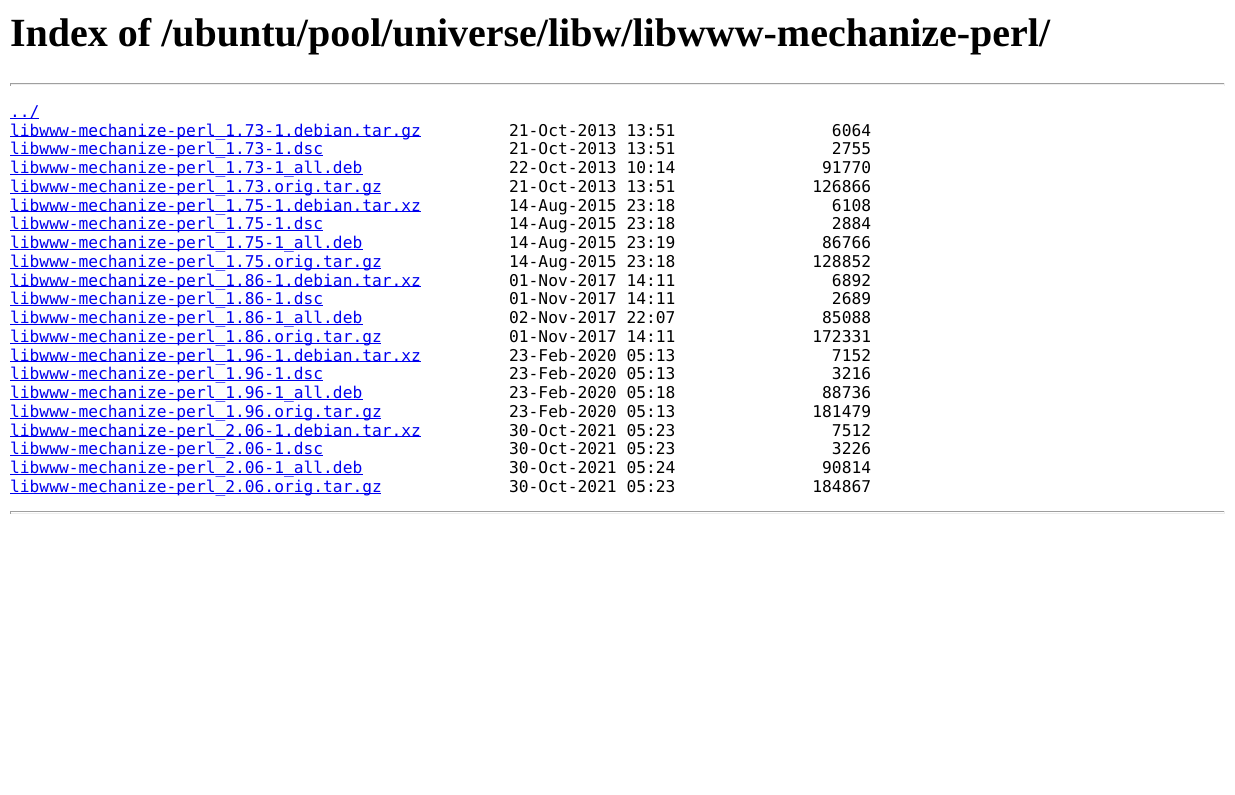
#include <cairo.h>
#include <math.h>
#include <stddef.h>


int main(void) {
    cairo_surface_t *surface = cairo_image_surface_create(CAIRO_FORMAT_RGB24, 1235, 795);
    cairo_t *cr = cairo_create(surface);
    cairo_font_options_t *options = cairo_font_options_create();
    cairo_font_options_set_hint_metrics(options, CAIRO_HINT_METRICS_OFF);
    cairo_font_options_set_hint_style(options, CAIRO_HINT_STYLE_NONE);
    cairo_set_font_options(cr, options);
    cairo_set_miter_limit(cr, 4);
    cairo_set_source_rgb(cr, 1, 1, 1);
    cairo_paint(cr);
    cairo_select_font_face(cr, "Liberation Serif", CAIRO_FONT_SLANT_NORMAL, CAIRO_FONT_WEIGHT_BOLD);
    cairo_set_font_size(cr, 40);
    cairo_set_source_rgb(cr, 0, 0, 0);
    cairo_move_to(cr, 10, 46);
    cairo_show_text(cr, "Index of /ubuntu/pool/universe/libw/libwww-mechanize-perl/");
    cairo_set_source_rgb(cr, 0.624, 0.624, 0.624);
    cairo_rectangle(cr, 10, 83, 1215, 1);
    cairo_fill(cr);
    cairo_set_source_rgb(cr, 0.933, 0.933, 0.933);
    cairo_rectangle(cr, 1224, 83, 1, 3);
    cairo_fill(cr);
    cairo_rectangle(cr, 10, 84, 1215, 1);
    cairo_fill(cr);
    cairo_set_source_rgb(cr, 0.624, 0.624, 0.624);
    cairo_rectangle(cr, 10, 83, 1, 3);
    cairo_fill(cr);
    cairo_set_source_rgb(cr, 0, 0, 0.933);
    cairo_rectangle(cr, 10, 118, 29, 1);
    cairo_fill(cr);
    cairo_select_font_face(cr, "DejaVu Sans Mono", CAIRO_FONT_SLANT_NORMAL, CAIRO_FONT_WEIGHT_NORMAL);
    cairo_set_font_size(cr, 16.25);
    cairo_move_to(cr, 10, 117);
    cairo_show_text(cr, "../");
    cairo_rectangle(cr, 10, 136, 411, 1);
    cairo_fill(cr);
    cairo_move_to(cr, 10, 136);
    cairo_show_text(cr, "libwww-mechanize-perl_1.73-1.debian.tar.gz");
    cairo_set_source_rgb(cr, 0, 0, 0);
    cairo_move_to(cr, 509, 136);
    cairo_show_text(cr, "21-Oct-2013 13:51                6064");
    cairo_set_source_rgb(cr, 0, 0, 0.933);
    cairo_rectangle(cr, 10, 155, 313, 1);
    cairo_fill(cr);
    cairo_move_to(cr, 10, 154);
    cairo_show_text(cr, "libwww-mechanize-perl_1.73-1.dsc");
    cairo_set_source_rgb(cr, 0, 0, 0);
    cairo_move_to(cr, 509, 154);
    cairo_show_text(cr, "21-Oct-2013 13:51                2755");
    cairo_set_source_rgb(cr, 0, 0, 0.933);
    cairo_rectangle(cr, 10, 174, 353, 1);
    cairo_fill(cr);
    cairo_move_to(cr, 10, 173);
    cairo_show_text(cr, "libwww-mechanize-perl_1.73-1_all.deb");
    cairo_set_source_rgb(cr, 0, 0, 0);
    cairo_move_to(cr, 509, 173);
    cairo_show_text(cr, "22-Oct-2013 10:14               91770");
    cairo_set_source_rgb(cr, 0, 0, 0.933);
    cairo_rectangle(cr, 10, 193, 371, 1);
    cairo_fill(cr);
    cairo_move_to(cr, 10, 192);
    cairo_show_text(cr, "libwww-mechanize-perl_1.73.orig.tar.gz");
    cairo_set_source_rgb(cr, 0, 0, 0);
    cairo_move_to(cr, 509, 192);
    cairo_show_text(cr, "21-Oct-2013 13:51              126866");
    cairo_set_source_rgb(cr, 0, 0, 0.933);
    cairo_rectangle(cr, 10, 211, 411, 1);
    cairo_fill(cr);
    cairo_move_to(cr, 10, 211);
    cairo_show_text(cr, "libwww-mechanize-perl_1.75-1.debian.tar.xz");
    cairo_set_source_rgb(cr, 0, 0, 0);
    cairo_move_to(cr, 509, 211);
    cairo_show_text(cr, "14-Aug-2015 23:18                6108");
    cairo_set_source_rgb(cr, 0, 0, 0.933);
    cairo_rectangle(cr, 10, 230, 313, 1);
    cairo_fill(cr);
    cairo_move_to(cr, 10, 229);
    cairo_show_text(cr, "libwww-mechanize-perl_1.75-1.dsc");
    cairo_set_source_rgb(cr, 0, 0, 0);
    cairo_move_to(cr, 509, 229);
    cairo_show_text(cr, "14-Aug-2015 23:18                2884");
    cairo_set_source_rgb(cr, 0, 0, 0.933);
    cairo_rectangle(cr, 10, 249, 353, 1);
    cairo_fill(cr);
    cairo_move_to(cr, 10, 248);
    cairo_show_text(cr, "libwww-mechanize-perl_1.75-1_all.deb");
    cairo_set_source_rgb(cr, 0, 0, 0);
    cairo_move_to(cr, 509, 248);
    cairo_show_text(cr, "14-Aug-2015 23:19               86766");
    cairo_set_source_rgb(cr, 0, 0, 0.933);
    cairo_rectangle(cr, 10, 268, 371, 1);
    cairo_fill(cr);
    cairo_move_to(cr, 10, 267);
    cairo_show_text(cr, "libwww-mechanize-perl_1.75.orig.tar.gz");
    cairo_set_source_rgb(cr, 0, 0, 0);
    cairo_move_to(cr, 509, 267);
    cairo_show_text(cr, "14-Aug-2015 23:18              128852");
    cairo_set_source_rgb(cr, 0, 0, 0.933);
    cairo_rectangle(cr, 10, 286, 411, 1);
    cairo_fill(cr);
    cairo_move_to(cr, 10, 286);
    cairo_show_text(cr, "libwww-mechanize-perl_1.86-1.debian.tar.xz");
    cairo_set_source_rgb(cr, 0, 0, 0);
    cairo_move_to(cr, 509, 286);
    cairo_show_text(cr, "01-Nov-2017 14:11                6892");
    cairo_set_source_rgb(cr, 0, 0, 0.933);
    cairo_rectangle(cr, 10, 305, 313, 1);
    cairo_fill(cr);
    cairo_move_to(cr, 10, 304);
    cairo_show_text(cr, "libwww-mechanize-perl_1.86-1.dsc");
    cairo_set_source_rgb(cr, 0, 0, 0);
    cairo_move_to(cr, 509, 304);
    cairo_show_text(cr, "01-Nov-2017 14:11                2689");
    cairo_set_source_rgb(cr, 0, 0, 0.933);
    cairo_rectangle(cr, 10, 324, 353, 1);
    cairo_fill(cr);
    cairo_move_to(cr, 10, 323);
    cairo_show_text(cr, "libwww-mechanize-perl_1.86-1_all.deb");
    cairo_set_source_rgb(cr, 0, 0, 0);
    cairo_move_to(cr, 509, 323);
    cairo_show_text(cr, "02-Nov-2017 22:07               85088");
    cairo_set_source_rgb(cr, 0, 0, 0.933);
    cairo_rectangle(cr, 10, 343, 371, 1);
    cairo_fill(cr);
    cairo_move_to(cr, 10, 342);
    cairo_show_text(cr, "libwww-mechanize-perl_1.86.orig.tar.gz");
    cairo_set_source_rgb(cr, 0, 0, 0);
    cairo_move_to(cr, 509, 342);
    cairo_show_text(cr, "01-Nov-2017 14:11              172331");
    cairo_set_source_rgb(cr, 0, 0, 0.933);
    cairo_rectangle(cr, 10, 361, 411, 1);
    cairo_fill(cr);
    cairo_move_to(cr, 10, 361);
    cairo_show_text(cr, "libwww-mechanize-perl_1.96-1.debian.tar.xz");
    cairo_set_source_rgb(cr, 0, 0, 0);
    cairo_move_to(cr, 509, 361);
    cairo_show_text(cr, "23-Feb-2020 05:13                7152");
    cairo_set_source_rgb(cr, 0, 0, 0.933);
    cairo_rectangle(cr, 10, 380, 313, 1);
    cairo_fill(cr);
    cairo_move_to(cr, 10, 379);
    cairo_show_text(cr, "libwww-mechanize-perl_1.96-1.dsc");
    cairo_set_source_rgb(cr, 0, 0, 0);
    cairo_move_to(cr, 509, 379);
    cairo_show_text(cr, "23-Feb-2020 05:13                3216");
    cairo_set_source_rgb(cr, 0, 0, 0.933);
    cairo_rectangle(cr, 10, 399, 353, 1);
    cairo_fill(cr);
    cairo_move_to(cr, 10, 398);
    cairo_show_text(cr, "libwww-mechanize-perl_1.96-1_all.deb");
    cairo_set_source_rgb(cr, 0, 0, 0);
    cairo_move_to(cr, 509, 398);
    cairo_show_text(cr, "23-Feb-2020 05:18               88736");
    cairo_set_source_rgb(cr, 0, 0, 0.933);
    cairo_rectangle(cr, 10, 418, 371, 1);
    cairo_fill(cr);
    cairo_move_to(cr, 10, 417);
    cairo_show_text(cr, "libwww-mechanize-perl_1.96.orig.tar.gz");
    cairo_set_source_rgb(cr, 0, 0, 0);
    cairo_move_to(cr, 509, 417);
    cairo_show_text(cr, "23-Feb-2020 05:13              181479");
    cairo_set_source_rgb(cr, 0, 0, 0.933);
    cairo_rectangle(cr, 10, 436, 411, 1);
    cairo_fill(cr);
    cairo_move_to(cr, 10, 436);
    cairo_show_text(cr, "libwww-mechanize-perl_2.06-1.debian.tar.xz");
    cairo_set_source_rgb(cr, 0, 0, 0);
    cairo_move_to(cr, 509, 436);
    cairo_show_text(cr, "30-Oct-2021 05:23                7512");
    cairo_set_source_rgb(cr, 0, 0, 0.933);
    cairo_rectangle(cr, 10, 455, 313, 1);
    cairo_fill(cr);
    cairo_move_to(cr, 10, 454);
    cairo_show_text(cr, "libwww-mechanize-perl_2.06-1.dsc");
    cairo_set_source_rgb(cr, 0, 0, 0);
    cairo_move_to(cr, 509, 454);
    cairo_show_text(cr, "30-Oct-2021 05:23                3226");
    cairo_set_source_rgb(cr, 0, 0, 0.933);
    cairo_rectangle(cr, 10, 474, 353, 1);
    cairo_fill(cr);
    cairo_move_to(cr, 10, 473);
    cairo_show_text(cr, "libwww-mechanize-perl_2.06-1_all.deb");
    cairo_set_source_rgb(cr, 0, 0, 0);
    cairo_move_to(cr, 509, 473);
    cairo_show_text(cr, "30-Oct-2021 05:24               90814");
    cairo_set_source_rgb(cr, 0, 0, 0.933);
    cairo_rectangle(cr, 10, 493, 371, 1);
    cairo_fill(cr);
    cairo_move_to(cr, 10, 492);
    cairo_show_text(cr, "libwww-mechanize-perl_2.06.orig.tar.gz");
    cairo_set_source_rgb(cr, 0, 0, 0);
    cairo_move_to(cr, 509, 492);
    cairo_show_text(cr, "30-Oct-2021 05:23              184867");
    cairo_set_source_rgb(cr, 0.624, 0.624, 0.624);
    cairo_rectangle(cr, 10, 511, 1215, 1);
    cairo_fill(cr);
    cairo_set_source_rgb(cr, 0.933, 0.933, 0.933);
    cairo_rectangle(cr, 1224, 511, 1, 3);
    cairo_fill(cr);
    cairo_rectangle(cr, 10, 513, 1215, 1);
    cairo_fill(cr);
    cairo_set_source_rgb(cr, 0.624, 0.624, 0.624);
    cairo_rectangle(cr, 10, 511, 1, 3);
    cairo_fill(cr);
    cairo_surface_write_to_png(surface, "page.png");
    cairo_font_options_destroy(options);
    cairo_destroy(cr);
    cairo_surface_destroy(surface);
    return 0;
}
